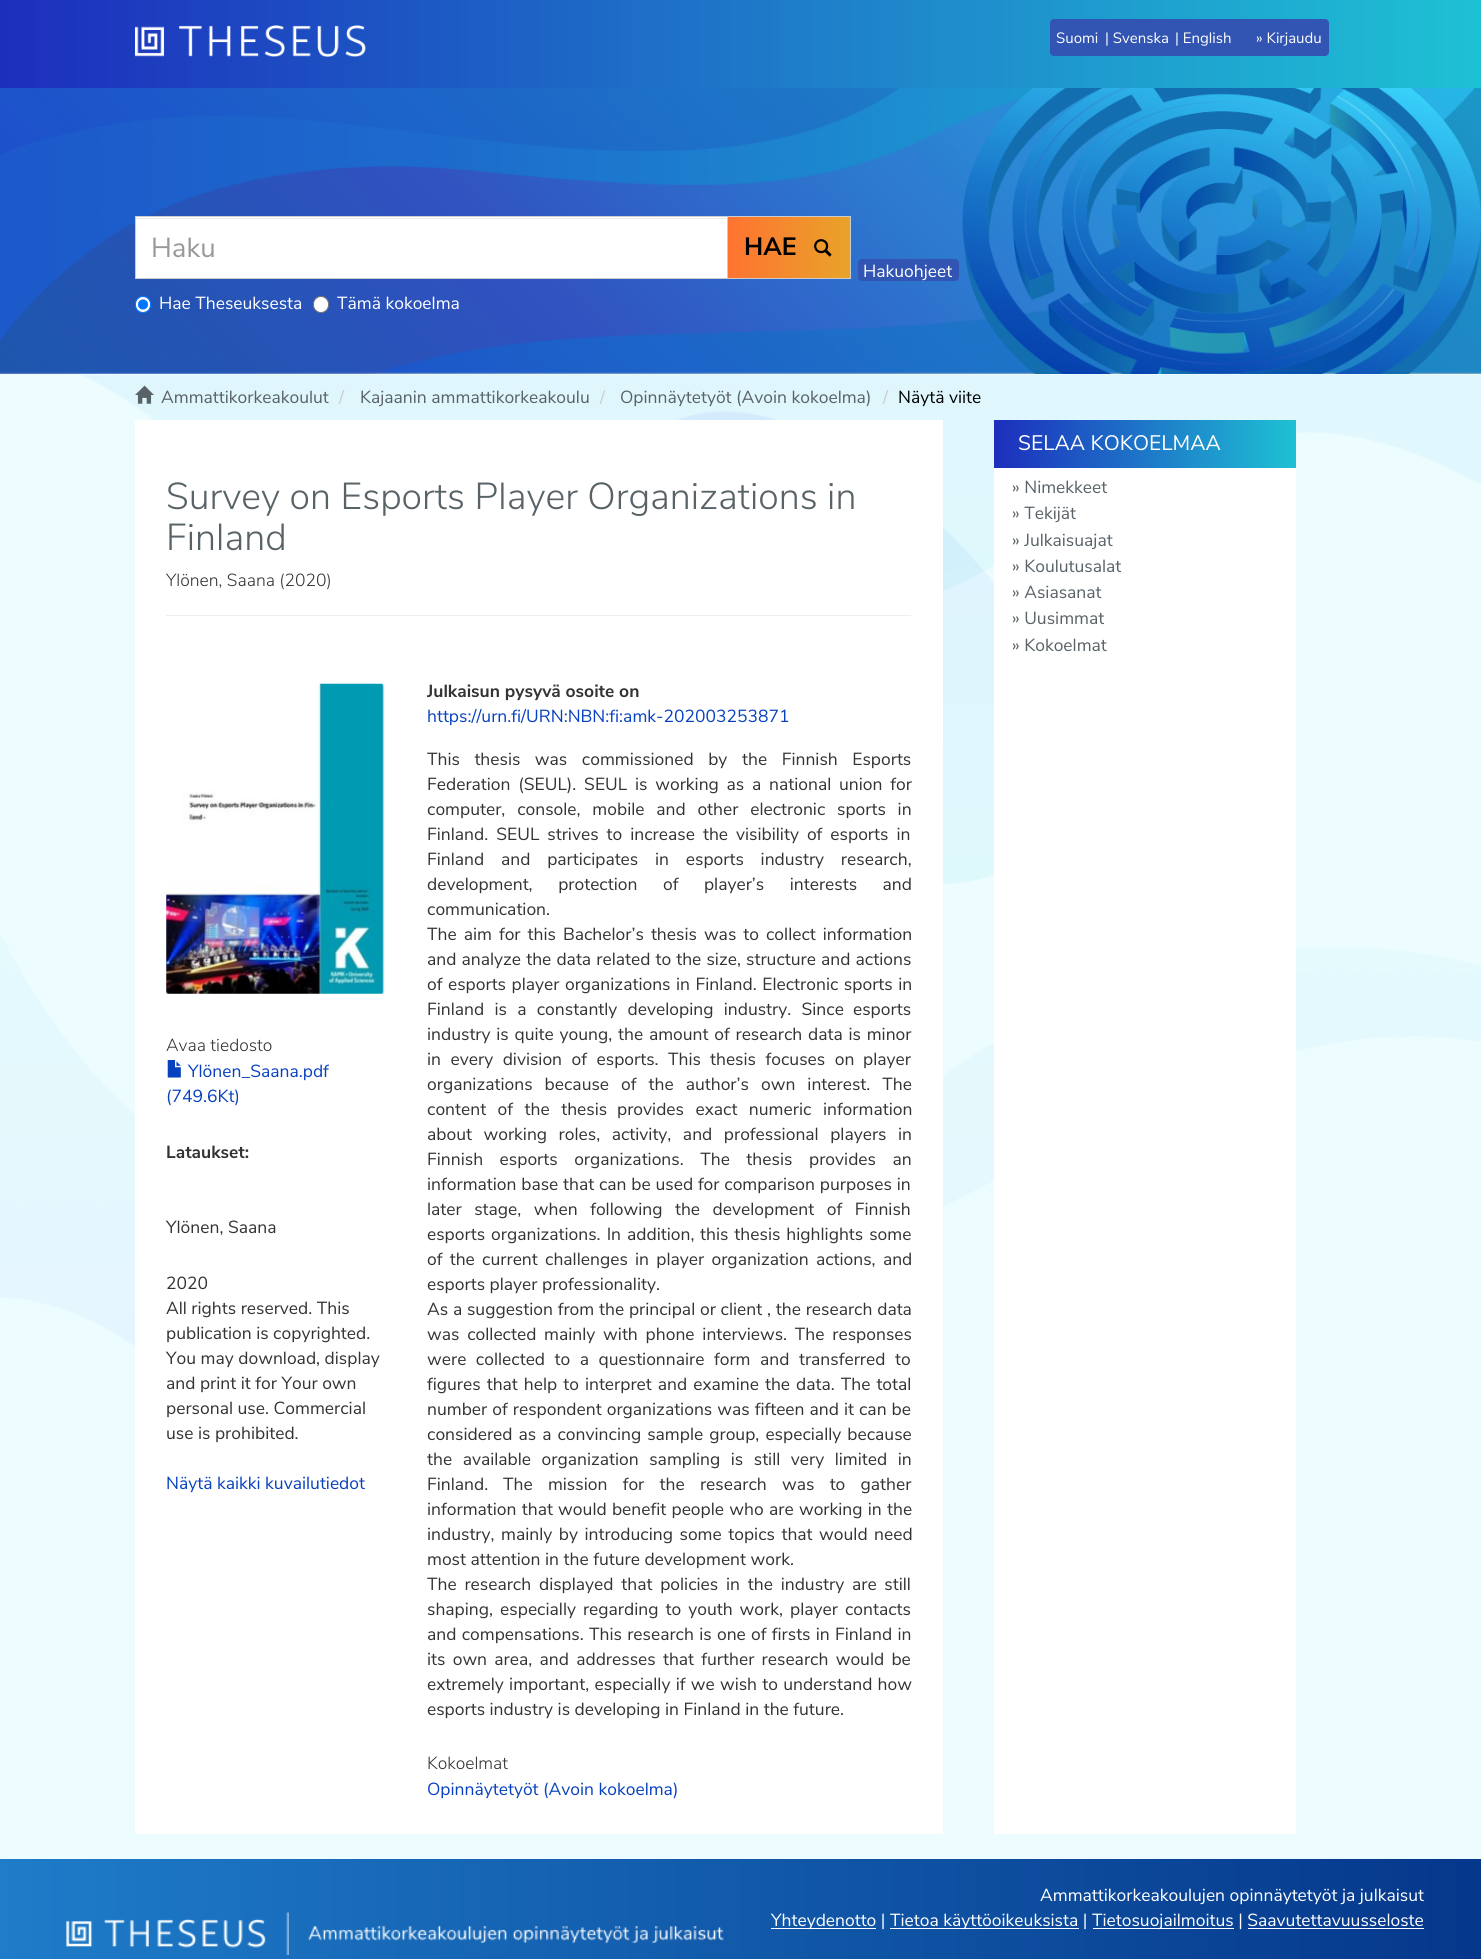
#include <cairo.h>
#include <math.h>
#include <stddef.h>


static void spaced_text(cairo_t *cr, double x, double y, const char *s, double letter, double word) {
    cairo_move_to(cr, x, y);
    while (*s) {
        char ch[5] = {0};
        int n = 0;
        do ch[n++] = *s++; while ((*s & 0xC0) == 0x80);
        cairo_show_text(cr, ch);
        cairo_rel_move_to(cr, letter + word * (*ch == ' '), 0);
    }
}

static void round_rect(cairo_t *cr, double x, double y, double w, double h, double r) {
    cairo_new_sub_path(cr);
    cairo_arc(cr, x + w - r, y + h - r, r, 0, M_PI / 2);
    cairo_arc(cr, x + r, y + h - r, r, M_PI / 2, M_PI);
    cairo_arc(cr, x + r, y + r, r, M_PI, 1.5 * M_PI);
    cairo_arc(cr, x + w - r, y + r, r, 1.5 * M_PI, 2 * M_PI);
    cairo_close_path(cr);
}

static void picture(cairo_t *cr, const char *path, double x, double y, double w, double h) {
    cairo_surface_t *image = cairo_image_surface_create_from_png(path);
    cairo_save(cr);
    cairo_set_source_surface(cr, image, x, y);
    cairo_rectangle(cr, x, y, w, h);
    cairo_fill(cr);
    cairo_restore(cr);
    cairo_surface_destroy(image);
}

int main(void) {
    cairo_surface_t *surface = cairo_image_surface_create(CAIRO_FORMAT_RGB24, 1481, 1959);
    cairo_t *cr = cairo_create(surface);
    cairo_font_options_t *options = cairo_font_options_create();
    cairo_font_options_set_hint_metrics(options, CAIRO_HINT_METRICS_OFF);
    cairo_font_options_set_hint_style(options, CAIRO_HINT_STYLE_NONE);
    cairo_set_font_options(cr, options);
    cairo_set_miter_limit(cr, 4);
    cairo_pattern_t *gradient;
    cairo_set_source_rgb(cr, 0.929, 0.988, 1);
    cairo_paint(cr);
    picture(cr, "img1.png", 0, 375, 1481, 971);
    gradient = cairo_pattern_create_linear(0, 44, 1481, 44);
    cairo_pattern_add_color_stop_rgba(gradient, 0, 0.114, 0.18, 0.741, 1);
    cairo_pattern_add_color_stop_rgba(gradient, 1, 0.118, 0.757, 0.831, 1);
    cairo_set_source(cr, gradient);
    cairo_pattern_destroy(gradient);
    cairo_rectangle(cr, 0, 0, 1481, 88);
    cairo_fill(cr);
    picture(cr, "img2.png", 135, 25, 231, 32);
    cairo_set_source_rgb(cr, 0.196, 0.329, 0.702);
    round_rect(cr, 1050, 19, 279, 37, 4);
    cairo_fill(cr);
    cairo_select_font_face(cr, "Nunito Sans", CAIRO_FONT_SLANT_NORMAL, CAIRO_FONT_WEIGHT_NORMAL);
    cairo_set_font_size(cr, 15);
    cairo_set_source_rgb(cr, 1, 1, 1);
    cairo_move_to(cr, 1056, 43);
    cairo_show_text(cr, "Suomi");
    cairo_move_to(cr, 1105, 43);
    cairo_show_text(cr, "| Svenska");
    cairo_move_to(cr, 1175, 43);
    cairo_show_text(cr, "| English");
    cairo_move_to(cr, 1256, 43);
    cairo_show_text(cr, "» Kirjaudu");
    cairo_set_source_rgb(cr, 0.667, 0.722, 0.776);
    cairo_rectangle(cr, 0, 372, 1481, 2);
    cairo_fill(cr);
    picture(cr, "img3.png", 0, 88, 1481, 286);
    gradient = cairo_pattern_create_linear(728, 248, 850, 248);
    cairo_pattern_add_color_stop_rgba(gradient, 0, 1, 0.451, 0.192, 1);
    cairo_pattern_add_color_stop_rgba(gradient, 1, 0.91, 0.639, 0.161, 1);
    cairo_set_source(cr, gradient);
    cairo_pattern_destroy(gradient);
    cairo_rectangle(cr, 728, 217, 122, 61);
    cairo_fill(cr);
    cairo_rectangle(cr, 726.5, 216.5, 124, 62);
    cairo_set_source_rgb(cr, 0.8, 0.8, 0.8);
    cairo_set_line_width(cr, 1);
    cairo_stroke(cr);
    cairo_set_source_rgb(cr, 1, 1, 1);
    cairo_rectangle(cr, 136, 217, 591, 61);
    cairo_fill(cr);
    cairo_set_source_rgb(cr, 0.925, 0.925, 0.925);
    cairo_rectangle(cr, 136, 218, 590, 1);
    cairo_fill(cr);
    cairo_rectangle(cr, 135.5, 216.5, 592, 62);
    cairo_set_source_rgb(cr, 0.8, 0.8, 0.8);
    cairo_stroke(cr);
    cairo_set_font_size(cr, 27.5);
    cairo_set_source_rgb(cr, 0.6, 0.6, 0.6);
    cairo_move_to(cr, 151, 257);
    cairo_show_text(cr, "Haku");
    cairo_select_font_face(cr, "Nunito Sans", CAIRO_FONT_SLANT_NORMAL, CAIRO_FONT_WEIGHT_BOLD);
    cairo_set_font_size(cr, 25);
    cairo_set_source_rgb(cr, 0, 0, 0);
    cairo_move_to(cr, 744, 255);
    cairo_show_text(cr, "HAE");
    picture(cr, "img4.png", 814, 239, 18, 18);
    cairo_set_source_rgb(cr, 1, 1, 1);
    round_rect(cr, 135.5, 296.5, 15, 16, 7.5);
    cairo_fill_preserve(cr);
    cairo_set_source_rgb(cr, 0, 0.459, 1);
    cairo_stroke(cr);
    cairo_arc(cr, 143, 304.5, 5, 0, 2 * M_PI);
    cairo_fill(cr);
    cairo_select_font_face(cr, "Nunito Sans", CAIRO_FONT_SLANT_NORMAL, CAIRO_FONT_WEIGHT_NORMAL);
    cairo_set_font_size(cr, 17.5);
    cairo_set_source_rgb(cr, 1, 1, 1);
    cairo_move_to(cr, 159, 309);
    cairo_show_text(cr, "Hae Theseuksesta");
    round_rect(cr, 313.5, 296.5, 15, 16, 7.5);
    cairo_fill_preserve(cr);
    cairo_set_source_rgb(cr, 0.463, 0.463, 0.463);
    cairo_stroke(cr);
    cairo_set_source_rgb(cr, 1, 1, 1);
    cairo_move_to(cr, 337, 309);
    cairo_show_text(cr, "Tämä kokoelma");
    cairo_set_source_rgb(cr, 0.196, 0.329, 0.702);
    round_rect(cr, 858, 259, 101, 22, 4);
    cairo_fill(cr);
    cairo_set_source_rgb(cr, 1, 1, 1);
    cairo_move_to(cr, 863, 277);
    cairo_show_text(cr, "Hakuohjeet");
    picture(cr, "img5.png", 135, 385, 19, 19);
    cairo_set_source_rgb(cr, 0.345, 0.384, 0.404);
    cairo_move_to(cr, 161, 403);
    cairo_show_text(cr, "Ammattikorkeakoulut");
    cairo_set_source_rgb(cr, 0.8, 0.8, 0.8);
    cairo_move_to(cr, 339, 403);
    cairo_show_text(cr, "/");
    cairo_set_source_rgb(cr, 0.345, 0.384, 0.404);
    cairo_move_to(cr, 360, 403);
    cairo_show_text(cr, "Kajaanin ammattikorkeakoulu");
    cairo_set_source_rgb(cr, 0.8, 0.8, 0.8);
    cairo_move_to(cr, 600, 403);
    cairo_show_text(cr, "/");
    cairo_set_source_rgb(cr, 0.345, 0.384, 0.404);
    cairo_move_to(cr, 620, 403);
    cairo_show_text(cr, "Opinnäytetyöt (Avoin kokoelma)");
    cairo_set_source_rgb(cr, 0.8, 0.8, 0.8);
    cairo_move_to(cr, 883, 403);
    cairo_show_text(cr, "/");
    cairo_set_source_rgb(cr, 0, 0, 0);
    cairo_move_to(cr, 898, 403);
    cairo_show_text(cr, "Näytä viite");
    cairo_set_source_rgb(cr, 1, 1, 1);
    cairo_rectangle(cr, 135, 420, 808, 1414);
    cairo_fill(cr);
    cairo_select_font_face(cr, "Nunito Sans Light", CAIRO_FONT_SLANT_NORMAL, CAIRO_FONT_WEIGHT_NORMAL);
    cairo_set_font_size(cr, 37.5);
    cairo_set_source_rgb(cr, 0.345, 0.384, 0.404);
    cairo_move_to(cr, 166, 509);
    cairo_show_text(cr, "Survey on Esports Player Organizations in");
    cairo_move_to(cr, 166, 550);
    cairo_show_text(cr, "Finland");
    cairo_set_font_size(cr, 17.5);
    cairo_set_source_rgb(cr, 0.2, 0.2, 0.2);
    cairo_move_to(cr, 166, 586);
    cairo_show_text(cr, "Ylönen, Saana (2020)");
    cairo_set_source_rgb(cr, 0.933, 0.933, 0.933);
    cairo_rectangle(cr, 166, 615, 745, 1);
    cairo_fill(cr);
    picture(cr, "img6.png", 166, 683, 219, 311);
    cairo_set_source_rgb(cr, 0.2, 0.2, 0.2);
    cairo_move_to(cr, 166, 1051);
    cairo_show_text(cr, "Avaa tiedosto");
    picture(cr, "img7.png", 167, 1060, 14, 18);
    cairo_select_font_face(cr, "Nunito Sans", CAIRO_FONT_SLANT_NORMAL, CAIRO_FONT_WEIGHT_NORMAL);
    cairo_set_source_rgb(cr, 0.031, 0.255, 0.749);
    cairo_move_to(cr, 188, 1077);
    cairo_show_text(cr, "Ylönen_Saana.pdf");
    cairo_move_to(cr, 166, 1102);
    cairo_show_text(cr, "(749.6Kt)");
    cairo_select_font_face(cr, "Nunito Sans", CAIRO_FONT_SLANT_NORMAL, CAIRO_FONT_WEIGHT_BOLD);
    cairo_set_source_rgb(cr, 0.2, 0.2, 0.2);
    cairo_move_to(cr, 166, 1158);
    cairo_show_text(cr, "Lataukset:");
    cairo_select_font_face(cr, "Nunito Sans", CAIRO_FONT_SLANT_NORMAL, CAIRO_FONT_WEIGHT_NORMAL);
    cairo_move_to(cr, 166, 1233);
    cairo_show_text(cr, "Ylönen, Saana");
    cairo_move_to(cr, 166, 1289);
    cairo_show_text(cr, "2020");
    cairo_move_to(cr, 166, 1314);
    cairo_show_text(cr, "All rights reserved. This");
    cairo_move_to(cr, 166, 1339);
    cairo_show_text(cr, "publication is copyrighted.");
    cairo_move_to(cr, 166, 1364);
    cairo_show_text(cr, "You may download, display");
    cairo_move_to(cr, 166, 1389);
    cairo_show_text(cr, "and print it for Your own");
    cairo_move_to(cr, 166, 1414);
    cairo_show_text(cr, "personal use. Commercial");
    cairo_move_to(cr, 166, 1439);
    cairo_show_text(cr, "use is prohibited.");
    cairo_set_source_rgb(cr, 0.031, 0.255, 0.749);
    cairo_move_to(cr, 166, 1489);
    cairo_show_text(cr, "Näytä kaikki kuvailutiedot");
    cairo_select_font_face(cr, "Nunito Sans", CAIRO_FONT_SLANT_NORMAL, CAIRO_FONT_WEIGHT_BOLD);
    cairo_set_source_rgb(cr, 0.2, 0.2, 0.2);
    cairo_move_to(cr, 427, 697);
    cairo_show_text(cr, "Julkaisun pysyvä osoite on");
    cairo_select_font_face(cr, "Nunito Sans", CAIRO_FONT_SLANT_NORMAL, CAIRO_FONT_WEIGHT_NORMAL);
    cairo_set_source_rgb(cr, 0.031, 0.255, 0.749);
    cairo_move_to(cr, 427, 722);
    cairo_show_text(cr, "https://urn.fi/URN:NBN:fi:amk-202003253871");
    cairo_set_source_rgb(cr, 0.2, 0.2, 0.2);
    spaced_text(cr, 427, 765, "This thesis was commissioned by", 0, 10);
    spaced_text(cr, 742, 765, "the Finnish Esports", 0, 10);
    spaced_text(cr, 427, 790, "Federation (SEUL). SEUL is working as a national union for", 0, 3.25);
    spaced_text(cr, 427, 815, "computer, console, mobile and other electronic sports in", 0, 7.25);
    spaced_text(cr, 427, 840, "Finland. SEUL strives to increase the visibility of esports in", 0, 3.5);
    spaced_text(cr, 427, 865, "Finland and participates in esports industry research,", 0, 12.25);
    spaced_text(cr, 427, 890, "development, protection of player’s interests and", 0, 21);
    cairo_move_to(cr, 427, 915);
    cairo_show_text(cr, "communication.");
    spaced_text(cr, 427, 940, "The aim for this Bachelor’s thesis was to collect information", 0, 2.5);
    spaced_text(cr, 427, 965, "and analyze the data related to the size, structure and actions", 0, 0.6);
    spaced_text(cr, 427, 990, "of esports player organizations in Finland. Electronic sports in", 0, 1);
    spaced_text(cr, 427, 1015, "Finland is a constantly developing industry. Since", 0, 5.75);
    cairo_move_to(cr, 853, 1015);
    cairo_show_text(cr, "esports");
    spaced_text(cr, 427, 1040, "industry is quite young, the amount of research data is minor", 0, 1.25);
    spaced_text(cr, 427, 1065, "in every division of esports. This", 0, 5);
    spaced_text(cr, 710, 1065, "thesis focuses on", 0, 5);
    cairo_move_to(cr, 863, 1065);
    cairo_show_text(cr, "player");
    spaced_text(cr, 427, 1090, "organizations because of the author’s own interest. The", 0, 7.5);
    spaced_text(cr, 427, 1115, "content of the thesis", 0, 7);
    spaced_text(cr, 617, 1115, "provides exact numeric information", 0, 7);
    spaced_text(cr, 427, 1140, "about working roles, activity, and professional players in", 0, 7);
    spaced_text(cr, 427, 1165, "Finnish esports organizations. The thesis", 0, 12);
    spaced_text(cr, 809, 1165, "provides an", 0, 12);
    spaced_text(cr, 427, 1190, "information base that can be used for comparison purposes in", 0, 0.25);
    spaced_text(cr, 427, 1215, "later stage, when following the development of Finnish", 0, 8);
    spaced_text(cr, 427, 1240, "esports organizations. In addition,", 0, 1.5);
    spaced_text(cr, 700, 1240, "this thesis highlights some", 0, 1.5);
    spaced_text(cr, 427, 1265, "of the current challenges in player organization actions, and", 0, 2.75);
    cairo_move_to(cr, 427, 1290);
    cairo_show_text(cr, "esports player professionality.");
    spaced_text(cr, 427, 1315, "As a suggestion from the principal or client , the research data", 0, 0.25);
    spaced_text(cr, 427, 1340, "was collected mainly with phone interviews. The responses", 0, 3.25);
    spaced_text(cr, 427, 1365, "were collected to a questionnaire form and transferred to", 0, 5);
    spaced_text(cr, 427, 1390, "figures that help to interpret and examine the data. The total", 0, 1.5);
    spaced_text(cr, 427, 1415, "number of respondent organizations was fifteen and it can be", 0, 0.5);
    spaced_text(cr, 427, 1440, "considered as a convincing sample group, especially because", 0, 1.5);
    spaced_text(cr, 427, 1465, "the available organization sampling is still very limited in", 0, 6);
    cairo_move_to(cr, 427, 1490);
    cairo_show_text(cr, "Finland.");
    spaced_text(cr, 503, 1490, "The mission for the research was to gather", 0, 10.75);
    spaced_text(cr, 427, 1515, "information that would benefit people who are working in the", 0, 0.75);
    spaced_text(cr, 427, 1540, "industry, mainly by introducing some topics that would need", 0, 2);
    cairo_move_to(cr, 427, 1565);
    cairo_show_text(cr, "most attention in the future development work.");
    spaced_text(cr, 427, 1590, "The research displayed that policies in the industry are still", 0, 3.25);
    spaced_text(cr, 427, 1615, "shaping, especially regarding to youth work, player contacts", 0, 2.5);
    spaced_text(cr, 427, 1640, "and compensations. This research is one of firsts in Finland in", 0, 0.75);
    spaced_text(cr, 427, 1665, "its own area, and addresses that further research would be", 0, 2.75);
    spaced_text(cr, 427, 1690, "extremely important, especially if we wish to understand how", 0, 0.75);
    cairo_move_to(cr, 427, 1715);
    cairo_show_text(cr, "esports industry is developing in Finland in the future.");
    cairo_select_font_face(cr, "Nunito Sans Light", CAIRO_FONT_SLANT_NORMAL, CAIRO_FONT_WEIGHT_NORMAL);
    cairo_move_to(cr, 427, 1769);
    cairo_show_text(cr, "Kokoelmat");
    cairo_select_font_face(cr, "Nunito Sans", CAIRO_FONT_SLANT_NORMAL, CAIRO_FONT_WEIGHT_NORMAL);
    cairo_set_source_rgb(cr, 0.031, 0.255, 0.749);
    cairo_move_to(cr, 427, 1795);
    cairo_show_text(cr, "Opinnäytetyöt (Avoin kokoelma)");
    cairo_set_source_rgb(cr, 1, 1, 1);
    cairo_rectangle(cr, 994, 468, 302, 1366);
    cairo_fill(cr);
    gradient = cairo_pattern_create_linear(994, 444, 1296, 444);
    cairo_pattern_add_color_stop_rgba(gradient, 0, 0.114, 0.18, 0.741, 1);
    cairo_pattern_add_color_stop_rgba(gradient, 1, 0.118, 0.757, 0.831, 1);
    cairo_set_source(cr, gradient);
    cairo_pattern_destroy(gradient);
    cairo_rectangle(cr, 994, 420, 302, 48);
    cairo_fill(cr);
    cairo_set_font_size(cr, 21);
    cairo_set_source_rgb(cr, 1, 1, 1);
    cairo_move_to(cr, 1018, 450);
    cairo_show_text(cr, "SELAA KOKOELMAA");
    cairo_set_font_size(cr, 17.5);
    cairo_set_source_rgb(cr, 0.345, 0.384, 0.404);
    cairo_move_to(cr, 1012, 493);
    cairo_show_text(cr, "» Nimekkeet");
    cairo_move_to(cr, 1012, 519);
    cairo_show_text(cr, "» Tekijät");
    cairo_move_to(cr, 1012, 546);
    cairo_show_text(cr, "» Julkaisuajat");
    cairo_move_to(cr, 1012, 572);
    cairo_show_text(cr, "» Koulutusalat");
    cairo_move_to(cr, 1012, 598);
    cairo_show_text(cr, "» Asiasanat");
    cairo_move_to(cr, 1012, 624);
    cairo_show_text(cr, "» Uusimmat");
    cairo_move_to(cr, 1012, 651);
    cairo_show_text(cr, "» Kokoelmat");
    gradient = cairo_pattern_create_linear(0, 1934, 1481, 1934);
    cairo_pattern_add_color_stop_rgba(gradient, 0, 0.118, 0.486, 0.788, 1);
    cairo_pattern_add_color_stop_rgba(gradient, 1, 0.02, 0.216, 0.545, 1);
    cairo_set_source(cr, gradient);
    cairo_pattern_destroy(gradient);
    cairo_rectangle(cr, 0, 1859, 1481, 100);
    cairo_fill(cr);
    picture(cr, "img8.png", 66, 1912, 658, 43);
    cairo_set_source_rgb(cr, 1, 1, 1);
    cairo_move_to(cr, 1040, 1901);
    cairo_show_text(cr, "Ammattikorkeakoulujen opinnäytetyöt ja julkaisut");
    cairo_rectangle(cr, 771, 1928, 105, 1);
    cairo_fill(cr);
    cairo_move_to(cr, 771, 1926);
    cairo_show_text(cr, "Yhteydenotto |");
    cairo_rectangle(cr, 890, 1928, 189, 1);
    cairo_fill(cr);
    cairo_move_to(cr, 890, 1926);
    cairo_show_text(cr, "Tietoa käyttöoikeuksista |");
    cairo_rectangle(cr, 1093, 1928, 141, 1);
    cairo_fill(cr);
    cairo_move_to(cr, 1092, 1926);
    cairo_show_text(cr, "Tietosuojailmoitus | Saavutettavuusseloste");
    cairo_rectangle(cr, 1248, 1928, 176, 1);
    cairo_fill(cr);
    cairo_surface_write_to_png(surface, "page.png");
    cairo_font_options_destroy(options);
    cairo_destroy(cr);
    cairo_surface_destroy(surface);
    return 0;
}
